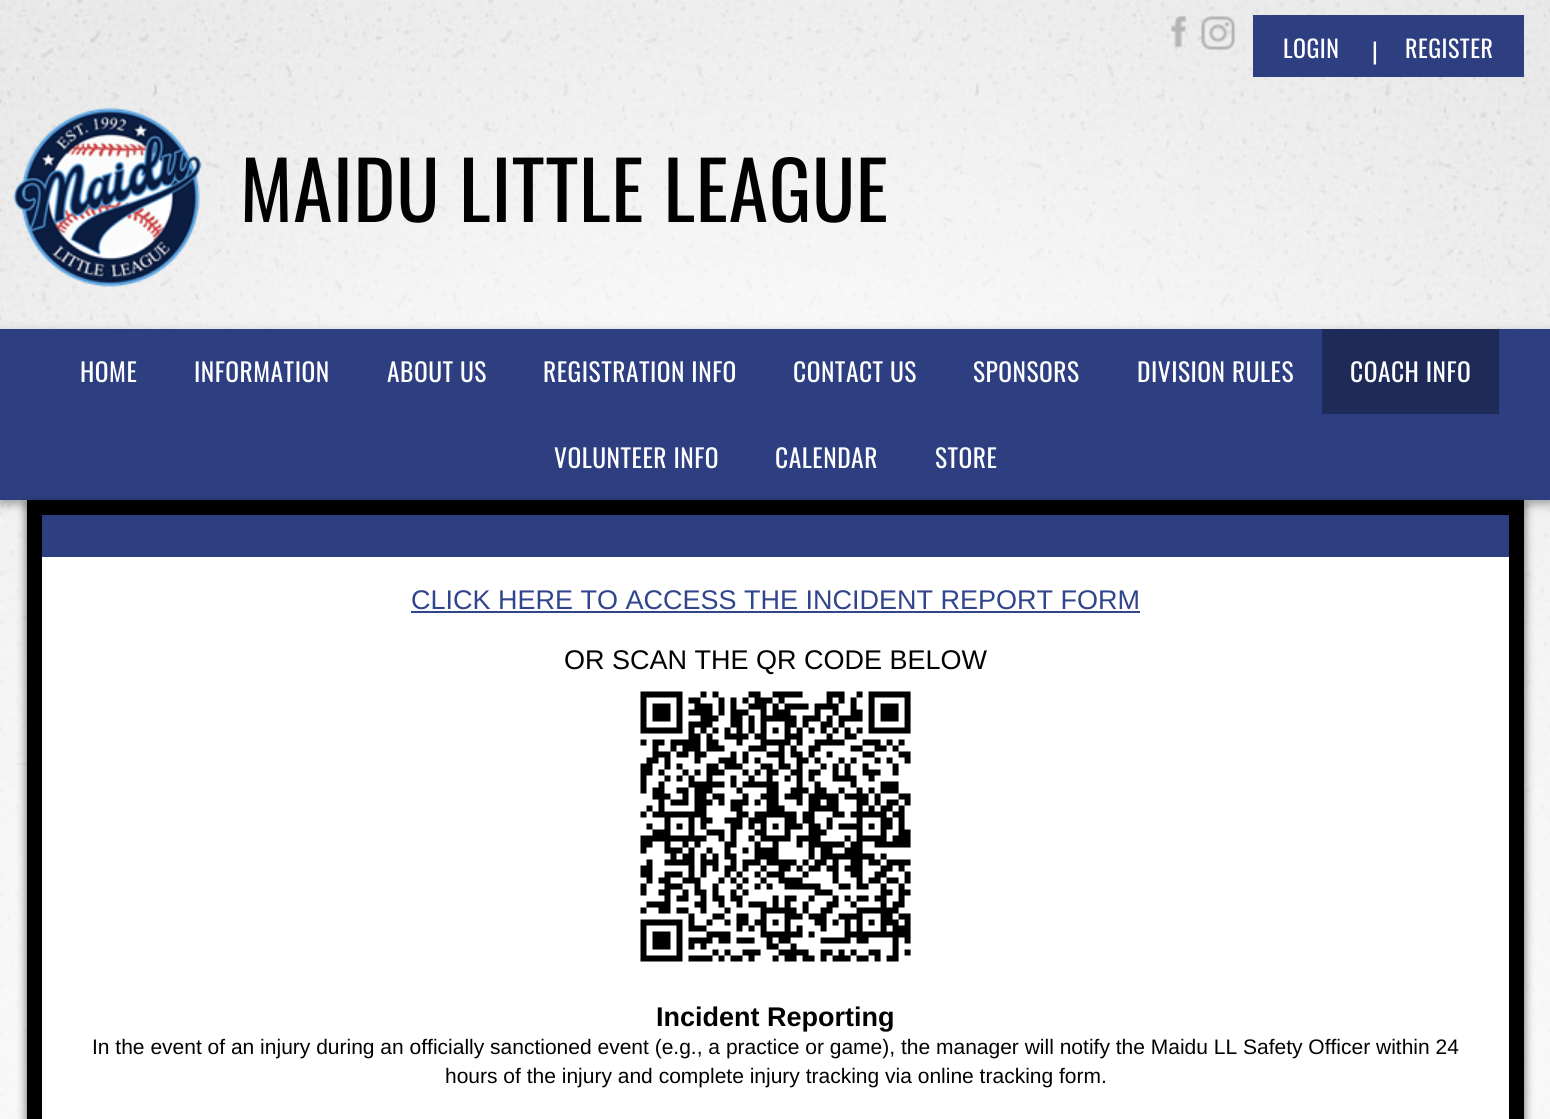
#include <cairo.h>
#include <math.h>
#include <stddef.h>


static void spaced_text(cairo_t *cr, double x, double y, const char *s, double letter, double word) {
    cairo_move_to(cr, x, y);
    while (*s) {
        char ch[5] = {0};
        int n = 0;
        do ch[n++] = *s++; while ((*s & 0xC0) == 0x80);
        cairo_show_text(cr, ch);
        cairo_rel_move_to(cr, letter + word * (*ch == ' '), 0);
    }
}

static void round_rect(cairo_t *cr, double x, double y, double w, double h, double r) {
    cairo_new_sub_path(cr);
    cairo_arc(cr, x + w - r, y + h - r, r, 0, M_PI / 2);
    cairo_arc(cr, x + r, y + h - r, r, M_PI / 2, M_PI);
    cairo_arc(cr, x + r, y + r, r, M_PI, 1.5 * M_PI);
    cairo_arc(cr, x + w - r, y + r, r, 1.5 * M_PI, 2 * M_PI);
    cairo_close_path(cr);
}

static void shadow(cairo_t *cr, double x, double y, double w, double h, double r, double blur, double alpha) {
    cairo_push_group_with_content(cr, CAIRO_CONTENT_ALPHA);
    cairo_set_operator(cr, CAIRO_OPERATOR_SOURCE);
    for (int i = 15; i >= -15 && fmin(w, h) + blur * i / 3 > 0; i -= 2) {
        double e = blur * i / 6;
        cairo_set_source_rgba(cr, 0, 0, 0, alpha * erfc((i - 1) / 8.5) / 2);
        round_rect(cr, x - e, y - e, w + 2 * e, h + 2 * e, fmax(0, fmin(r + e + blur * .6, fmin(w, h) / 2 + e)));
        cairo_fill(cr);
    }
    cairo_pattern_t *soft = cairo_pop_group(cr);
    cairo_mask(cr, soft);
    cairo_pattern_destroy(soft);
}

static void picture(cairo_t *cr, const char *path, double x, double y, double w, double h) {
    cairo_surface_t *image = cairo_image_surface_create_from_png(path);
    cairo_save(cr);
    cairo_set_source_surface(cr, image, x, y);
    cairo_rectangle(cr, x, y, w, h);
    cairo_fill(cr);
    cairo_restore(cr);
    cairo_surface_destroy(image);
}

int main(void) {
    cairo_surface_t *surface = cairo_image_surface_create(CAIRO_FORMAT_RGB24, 1550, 1119);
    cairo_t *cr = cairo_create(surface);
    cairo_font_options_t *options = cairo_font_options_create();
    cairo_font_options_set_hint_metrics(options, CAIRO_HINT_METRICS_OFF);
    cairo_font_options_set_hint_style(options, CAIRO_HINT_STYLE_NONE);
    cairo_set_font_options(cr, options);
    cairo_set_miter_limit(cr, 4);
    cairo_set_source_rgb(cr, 1, 1, 1);
    cairo_paint(cr);
    picture(cr, "img1.png", 0, 0, 1550, 1119);
    picture(cr, "img2.png", 0, 0, 1550, 1119);
    picture(cr, "img3.png", 1171, 16, 16, 32);
    picture(cr, "img4.png", 1201, 16, 34, 34);
    cairo_set_source_rgb(cr, 0.176, 0.247, 0.506);
    cairo_rectangle(cr, 1253, 15, 271, 62);
    cairo_fill(cr);
    cairo_select_font_face(cr, "Oswald", CAIRO_FONT_SLANT_NORMAL, CAIRO_FONT_WEIGHT_NORMAL);
    cairo_set_font_size(cr, 24);
    cairo_set_source_rgb(cr, 1, 1, 1);
    spaced_text(cr, 1283, 58, "LOGIN", 0.5, 0);
    spaced_text(cr, 1372, 61, "|", 0.5, 0);
    spaced_text(cr, 1405, 58, "REGISTER", 0.5, 0);
    picture(cr, "img5.png", 13, 107, 189, 180);
    cairo_set_font_size(cr, 79.5);
    cairo_set_source_rgb(cr, 0.004, 0.004, 0.004);
    spaced_text(cr, 240, 222, "MAIDU LITTLE LEAGUE", 0.75, 0);
    cairo_set_source_rgb(cr, 0, 0, 0);
    shadow(cr, 0, 333, 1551, 171, 0, 5, 0.35);
    cairo_set_source_rgb(cr, 0.176, 0.247, 0.506);
    cairo_rectangle(cr, 0, 329, 1550, 171);
    cairo_fill(cr);
    cairo_set_font_size(cr, 25.5);
    cairo_set_source_rgb(cr, 1, 1, 1);
    spaced_text(cr, 80, 382, "HOME", 0.5, 0);
    spaced_text(cr, 194, 382, "INFORMATION", 0.5, 0);
    spaced_text(cr, 387, 382, "ABOUT US", 0.5, 0);
    spaced_text(cr, 543, 382, "REGISTRATION INFO", 0.5, 0);
    spaced_text(cr, 793, 382, "CONTACT US", 0.5, 0);
    spaced_text(cr, 973, 382, "SPONSORS", 0.5, 0);
    spaced_text(cr, 1137, 382, "DIVISION RULES", 0.5, 0);
    cairo_set_source_rgb(cr, 0.118, 0.169, 0.349);
    cairo_rectangle(cr, 1322, 329, 177, 85);
    cairo_fill(cr);
    cairo_set_source_rgb(cr, 1, 1, 1);
    spaced_text(cr, 1350, 382, "COACH INFO", 0.5, 0);
    spaced_text(cr, 554, 468, "VOLUNTEER INFO", 0.5, 0);
    spaced_text(cr, 775, 468, "CALENDAR", 0.5, 0);
    spaced_text(cr, 935, 468, "STORE", 0.5, 0);
    cairo_set_source_rgb(cr, 0, 0, 0);
    shadow(cr, 27, 504, 1497, 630, 0, 5, 0.61);
    cairo_set_source_rgb(cr, 0, 0, 0);
    cairo_rectangle(cr, 27, 500, 1497, 619);
    cairo_fill(cr);
    cairo_set_source_rgb(cr, 0.176, 0.247, 0.506);
    cairo_rectangle(cr, 42, 515, 1467, 42);
    cairo_fill(cr);
    cairo_set_source_rgb(cr, 1, 1, 1);
    cairo_rectangle(cr, 42, 557, 1467, 562);
    cairo_fill(cr);
    cairo_select_font_face(cr, "Liberation Sans", CAIRO_FONT_SLANT_NORMAL, CAIRO_FONT_WEIGHT_NORMAL);
    cairo_set_font_size(cr, 27);
    cairo_set_source_rgb(cr, 0.192, 0.271, 0.549);
    cairo_move_to(cr, 411, 609);
    cairo_show_text(cr, "CLICK HERE TO ACCESS THE INCIDENT REPORT FORM");
    cairo_rectangle(cr, 411, 611, 729, 2);
    cairo_fill(cr);
    cairo_set_source_rgb(cr, 0.004, 0.004, 0.004);
    cairo_move_to(cr, 564, 669);
    cairo_show_text(cr, "OR SCAN THE QR CODE BELOW");
    picture(cr, "img6.png", 640, 691, 271, 271);
    cairo_select_font_face(cr, "Liberation Sans", CAIRO_FONT_SLANT_NORMAL, CAIRO_FONT_WEIGHT_BOLD);
    cairo_move_to(cr, 656, 1026);
    cairo_show_text(cr, "Incident Reporting");
    cairo_select_font_face(cr, "Liberation Sans", CAIRO_FONT_SLANT_NORMAL, CAIRO_FONT_WEIGHT_NORMAL);
    cairo_set_font_size(cr, 21);
    cairo_move_to(cr, 92, 1054);
    cairo_show_text(cr, "In the event of an injury during an officially sanctioned event (e.g., a practice or game), the manager will notify the Maidu LL Safety Officer within 24");
    cairo_move_to(cr, 445, 1083);
    cairo_show_text(cr, "hours of the injury and complete injury tracking via online tracking form.");
    cairo_surface_write_to_png(surface, "page.png");
    cairo_font_options_destroy(options);
    cairo_destroy(cr);
    cairo_surface_destroy(surface);
    return 0;
}
